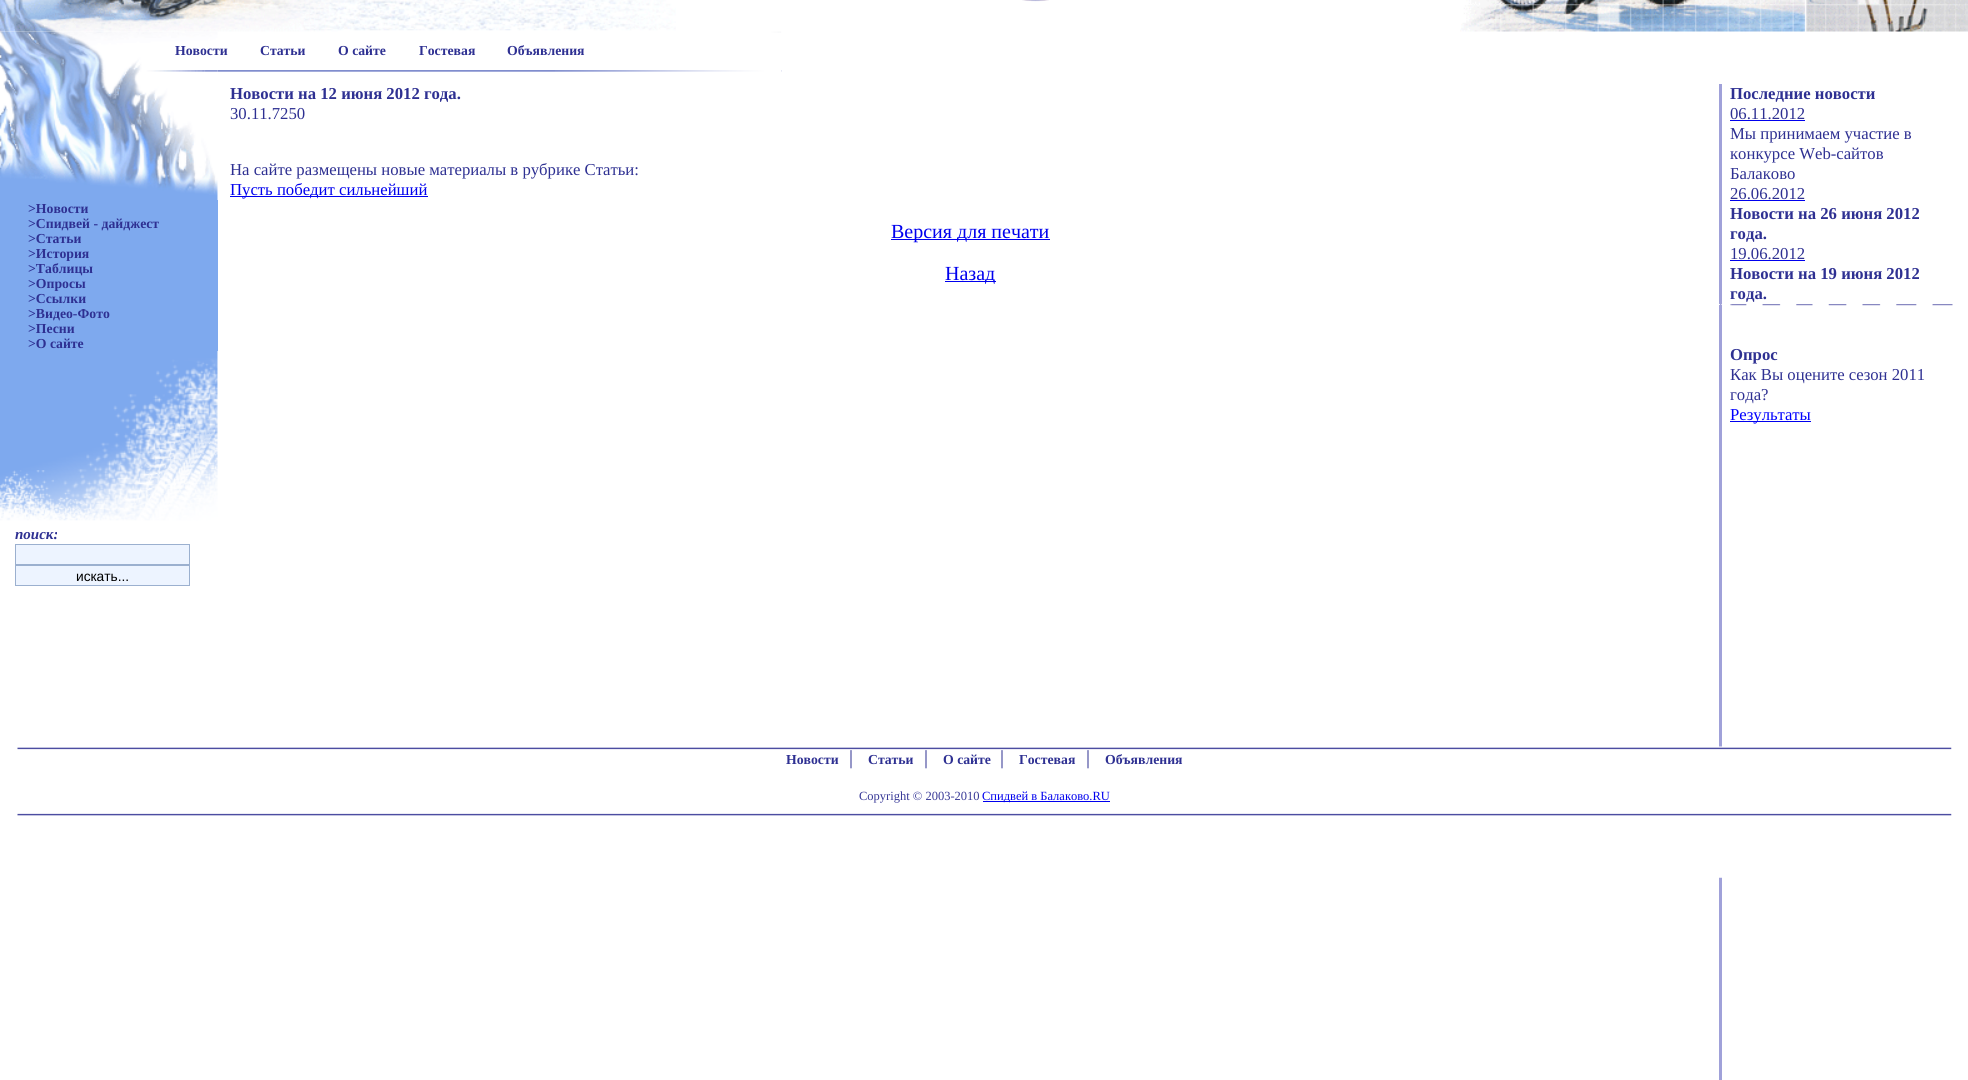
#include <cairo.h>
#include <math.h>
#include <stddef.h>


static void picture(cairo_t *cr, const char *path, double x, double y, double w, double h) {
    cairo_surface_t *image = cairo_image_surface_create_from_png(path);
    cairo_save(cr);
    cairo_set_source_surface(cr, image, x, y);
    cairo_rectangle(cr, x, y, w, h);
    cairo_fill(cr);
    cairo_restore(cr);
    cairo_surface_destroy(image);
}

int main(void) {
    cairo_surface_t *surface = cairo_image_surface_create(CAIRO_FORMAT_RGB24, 1968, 1080);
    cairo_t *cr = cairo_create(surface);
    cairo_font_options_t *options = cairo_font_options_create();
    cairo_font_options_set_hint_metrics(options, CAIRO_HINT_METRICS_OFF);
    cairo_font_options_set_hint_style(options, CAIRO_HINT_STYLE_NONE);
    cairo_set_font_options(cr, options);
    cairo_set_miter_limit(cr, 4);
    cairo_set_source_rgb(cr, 1, 1, 1);
    cairo_paint(cr);
    picture(cr, "img4.png", 0, 31, 218, 169);
    picture(cr, "img7.png", 230, 70, 552, 2);
    picture(cr, "img8.png", 555, 31, 227, 41);
    picture(cr, "img1.png", 0, 0, 676, 32);
    picture(cr, "img2.png", 1022, 0, 27, 2);
    picture(cr, "img3.png", 1460, 0, 508, 32);
    cairo_select_font_face(cr, "Liberation Serif", CAIRO_FONT_SLANT_NORMAL, CAIRO_FONT_WEIGHT_BOLD);
    cairo_set_font_size(cr, 13.75);
    cairo_set_source_rgb(cr, 0.18, 0.188, 0.573);
    cairo_move_to(cr, 175, 55);
    cairo_show_text(cr, "Новости");
    cairo_move_to(cr, 260, 55);
    cairo_show_text(cr, "Статьи");
    cairo_move_to(cr, 338, 55);
    cairo_show_text(cr, "О сайте");
    cairo_move_to(cr, 419, 55);
    cairo_show_text(cr, "Гостевая");
    cairo_move_to(cr, 507, 55);
    cairo_show_text(cr, "Объявления");
    cairo_set_source_rgb(cr, 0.494, 0.663, 0.933);
    cairo_rectangle(cr, 0, 200, 218, 151);
    cairo_fill(cr);
    cairo_set_source_rgb(cr, 0.18, 0.188, 0.573);
    cairo_move_to(cr, 28, 213);
    cairo_show_text(cr, ">Новости");
    cairo_move_to(cr, 28, 228);
    cairo_show_text(cr, ">Спидвей - дайджест");
    cairo_move_to(cr, 28, 243);
    cairo_show_text(cr, ">Статьи");
    cairo_move_to(cr, 28, 258);
    cairo_show_text(cr, ">История");
    cairo_move_to(cr, 28, 273);
    cairo_show_text(cr, ">Таблицы");
    cairo_move_to(cr, 28, 288);
    cairo_show_text(cr, ">Опросы");
    cairo_move_to(cr, 28, 303);
    cairo_show_text(cr, ">Ссылки");
    cairo_move_to(cr, 28, 318);
    cairo_show_text(cr, ">Видео-Фото");
    cairo_move_to(cr, 28, 333);
    cairo_show_text(cr, ">Песни");
    cairo_move_to(cr, 28, 348);
    cairo_show_text(cr, ">О сайте");
    picture(cr, "img5.png", 0, 351, 218, 170);
    cairo_select_font_face(cr, "Liberation Serif", CAIRO_FONT_SLANT_ITALIC, CAIRO_FONT_WEIGHT_BOLD);
    cairo_set_font_size(cr, 15);
    cairo_move_to(cr, 15, 539);
    cairo_show_text(cr, "поиск:");
    cairo_set_source_rgb(cr, 0.929, 0.957, 1);
    cairo_rectangle(cr, 15.5, 544.5, 174, 20);
    cairo_fill_preserve(cr);
    cairo_set_source_rgb(cr, 0.608, 0.69, 0.812);
    cairo_set_line_width(cr, 1);
    cairo_stroke(cr);
    cairo_set_source_rgb(cr, 0.929, 0.957, 1);
    cairo_rectangle(cr, 15.5, 565.5, 174, 20);
    cairo_fill_preserve(cr);
    cairo_set_source_rgb(cr, 0.608, 0.69, 0.812);
    cairo_stroke(cr);
    cairo_select_font_face(cr, "Liberation Sans", CAIRO_FONT_SLANT_NORMAL, CAIRO_FONT_WEIGHT_NORMAL);
    cairo_set_font_size(cr, 13.75);
    cairo_set_source_rgb(cr, 0, 0, 0);
    cairo_move_to(cr, 76, 581);
    cairo_show_text(cr, "искать...");
    picture(cr, "img6.png", 217, 70, 13, 2);
    cairo_select_font_face(cr, "Liberation Serif", CAIRO_FONT_SLANT_NORMAL, CAIRO_FONT_WEIGHT_BOLD);
    cairo_set_font_size(cr, 16.7);
    cairo_set_source_rgb(cr, 0.18, 0.188, 0.573);
    cairo_move_to(cr, 230, 99);
    cairo_show_text(cr, "Новости на 12 июня 2012 года.");
    cairo_select_font_face(cr, "Liberation Serif", CAIRO_FONT_SLANT_NORMAL, CAIRO_FONT_WEIGHT_NORMAL);
    cairo_move_to(cr, 230, 119);
    cairo_show_text(cr, "30.11.7250");
    cairo_move_to(cr, 230, 175);
    cairo_show_text(cr, "На сайте размещены новые материалы в рубрике Статьи:");
    cairo_set_source_rgb(cr, 0, 0, 0.933);
    cairo_rectangle(cr, 230, 196, 198, 1);
    cairo_fill(cr);
    cairo_move_to(cr, 230, 195);
    cairo_show_text(cr, "Пусть победит сильнейший");
    cairo_rectangle(cr, 891, 239, 159, 1);
    cairo_fill(cr);
    cairo_set_font_size(cr, 20);
    cairo_move_to(cr, 891, 238);
    cairo_show_text(cr, "Версия для печати");
    cairo_rectangle(cr, 945, 281, 51, 1);
    cairo_fill(cr);
    cairo_move_to(cr, 945, 280);
    cairo_show_text(cr, "Назад");
    cairo_set_source_rgb(cr, 0.627, 0.631, 0.851);
    cairo_rectangle(cr, 1719, 84, 3, 220);
    cairo_fill(cr);
    cairo_select_font_face(cr, "Liberation Serif", CAIRO_FONT_SLANT_NORMAL, CAIRO_FONT_WEIGHT_BOLD);
    cairo_set_font_size(cr, 16.7);
    cairo_set_source_rgb(cr, 0.18, 0.188, 0.573);
    cairo_move_to(cr, 1730, 99);
    cairo_show_text(cr, "Последние новости");
    cairo_select_font_face(cr, "Liberation Serif", CAIRO_FONT_SLANT_NORMAL, CAIRO_FONT_WEIGHT_NORMAL);
    cairo_move_to(cr, 1730, 119);
    cairo_show_text(cr, "06.11.2012");
    cairo_set_source_rgb(cr, 0, 0, 0.933);
    cairo_rectangle(cr, 1730, 120, 75, 1);
    cairo_fill(cr);
    cairo_set_source_rgb(cr, 0.18, 0.188, 0.573);
    cairo_move_to(cr, 1730, 139);
    cairo_show_text(cr, "Мы принимаем участие в");
    cairo_move_to(cr, 1730, 159);
    cairo_show_text(cr, "конкурсе Web-сайтов");
    cairo_move_to(cr, 1730, 179);
    cairo_show_text(cr, "Балаково");
    cairo_move_to(cr, 1730, 199);
    cairo_show_text(cr, "26.06.2012");
    cairo_set_source_rgb(cr, 0, 0, 0.933);
    cairo_rectangle(cr, 1730, 200, 75, 1);
    cairo_fill(cr);
    cairo_select_font_face(cr, "Liberation Serif", CAIRO_FONT_SLANT_NORMAL, CAIRO_FONT_WEIGHT_BOLD);
    cairo_set_source_rgb(cr, 0.18, 0.188, 0.573);
    cairo_move_to(cr, 1730, 219);
    cairo_show_text(cr, "Новости на 26 июня 2012");
    cairo_move_to(cr, 1730, 239);
    cairo_show_text(cr, "года.");
    cairo_select_font_face(cr, "Liberation Serif", CAIRO_FONT_SLANT_NORMAL, CAIRO_FONT_WEIGHT_NORMAL);
    cairo_move_to(cr, 1730, 259);
    cairo_show_text(cr, "19.06.2012");
    cairo_set_source_rgb(cr, 0, 0, 0.933);
    cairo_rectangle(cr, 1730, 260, 75, 1);
    cairo_fill(cr);
    cairo_select_font_face(cr, "Liberation Serif", CAIRO_FONT_SLANT_NORMAL, CAIRO_FONT_WEIGHT_BOLD);
    cairo_set_source_rgb(cr, 0.18, 0.188, 0.573);
    cairo_move_to(cr, 1730, 279);
    cairo_show_text(cr, "Новости на 19 июня 2012");
    cairo_move_to(cr, 1730, 299);
    cairo_show_text(cr, "года.");
    picture(cr, "img9.png", 1719, 304, 3, 1);
    picture(cr, "img10.png", 1730, 304, 223, 2);
    cairo_set_source_rgb(cr, 0.627, 0.631, 0.851);
    cairo_rectangle(cr, 1719, 305, 3, 775);
    cairo_fill(cr);
    cairo_set_source_rgb(cr, 0.18, 0.188, 0.573);
    cairo_move_to(cr, 1730, 360);
    cairo_show_text(cr, "Опрос");
    cairo_select_font_face(cr, "Liberation Serif", CAIRO_FONT_SLANT_NORMAL, CAIRO_FONT_WEIGHT_NORMAL);
    cairo_move_to(cr, 1730, 380);
    cairo_show_text(cr, "Как Вы оцените сезон 2011");
    cairo_move_to(cr, 1730, 400);
    cairo_show_text(cr, "года?");
    cairo_set_source_rgb(cr, 0, 0, 0.933);
    cairo_rectangle(cr, 1730, 421, 81, 1);
    cairo_fill(cr);
    cairo_set_source_rgb(cr, 0, 0, 1);
    cairo_move_to(cr, 1730, 420);
    cairo_show_text(cr, "Результаты");
    picture(cr, "img11.png", 17, 746, 1935, 132);
    cairo_select_font_face(cr, "Liberation Serif", CAIRO_FONT_SLANT_NORMAL, CAIRO_FONT_WEIGHT_BOLD);
    cairo_set_font_size(cr, 13.75);
    cairo_set_source_rgb(cr, 0.18, 0.188, 0.573);
    cairo_move_to(cr, 786, 764);
    cairo_show_text(cr, "Новости");
    cairo_select_font_face(cr, "Liberation Serif", CAIRO_FONT_SLANT_NORMAL, CAIRO_FONT_WEIGHT_NORMAL);
    cairo_set_font_size(cr, 20);
    cairo_move_to(cr, 849, 764);
    cairo_show_text(cr, "|");
    cairo_select_font_face(cr, "Liberation Serif", CAIRO_FONT_SLANT_NORMAL, CAIRO_FONT_WEIGHT_BOLD);
    cairo_set_font_size(cr, 13.75);
    cairo_move_to(cr, 868, 764);
    cairo_show_text(cr, "Статьи");
    cairo_select_font_face(cr, "Liberation Serif", CAIRO_FONT_SLANT_NORMAL, CAIRO_FONT_WEIGHT_NORMAL);
    cairo_set_font_size(cr, 20);
    cairo_move_to(cr, 924, 764);
    cairo_show_text(cr, "|");
    cairo_select_font_face(cr, "Liberation Serif", CAIRO_FONT_SLANT_NORMAL, CAIRO_FONT_WEIGHT_BOLD);
    cairo_set_font_size(cr, 13.75);
    cairo_move_to(cr, 943, 764);
    cairo_show_text(cr, "О сайте");
    cairo_select_font_face(cr, "Liberation Serif", CAIRO_FONT_SLANT_NORMAL, CAIRO_FONT_WEIGHT_NORMAL);
    cairo_set_font_size(cr, 20);
    cairo_move_to(cr, 1000, 764);
    cairo_show_text(cr, "|");
    cairo_select_font_face(cr, "Liberation Serif", CAIRO_FONT_SLANT_NORMAL, CAIRO_FONT_WEIGHT_BOLD);
    cairo_set_font_size(cr, 13.75);
    cairo_move_to(cr, 1019, 764);
    cairo_show_text(cr, "Гостевая");
    cairo_select_font_face(cr, "Liberation Serif", CAIRO_FONT_SLANT_NORMAL, CAIRO_FONT_WEIGHT_NORMAL);
    cairo_set_font_size(cr, 20);
    cairo_move_to(cr, 1086, 764);
    cairo_show_text(cr, "|");
    cairo_select_font_face(cr, "Liberation Serif", CAIRO_FONT_SLANT_NORMAL, CAIRO_FONT_WEIGHT_BOLD);
    cairo_set_font_size(cr, 13.75);
    cairo_move_to(cr, 1105, 764);
    cairo_show_text(cr, "Объявления");
    cairo_select_font_face(cr, "Liberation Serif", CAIRO_FONT_SLANT_NORMAL, CAIRO_FONT_WEIGHT_NORMAL);
    cairo_set_font_size(cr, 12.5);
    cairo_set_source_rgb(cr, 0.22, 0.224, 0.592);
    cairo_move_to(cr, 859, 800);
    cairo_show_text(cr, "Copyright © 2003-2010");
    cairo_set_source_rgb(cr, 0, 0, 0.933);
    cairo_rectangle(cr, 983, 801, 127, 1);
    cairo_fill(cr);
    cairo_move_to(cr, 982, 800);
    cairo_show_text(cr, "Спидвей в Балаково.RU");
    cairo_surface_write_to_png(surface, "page.png");
    cairo_font_options_destroy(options);
    cairo_destroy(cr);
    cairo_surface_destroy(surface);
    return 0;
}
